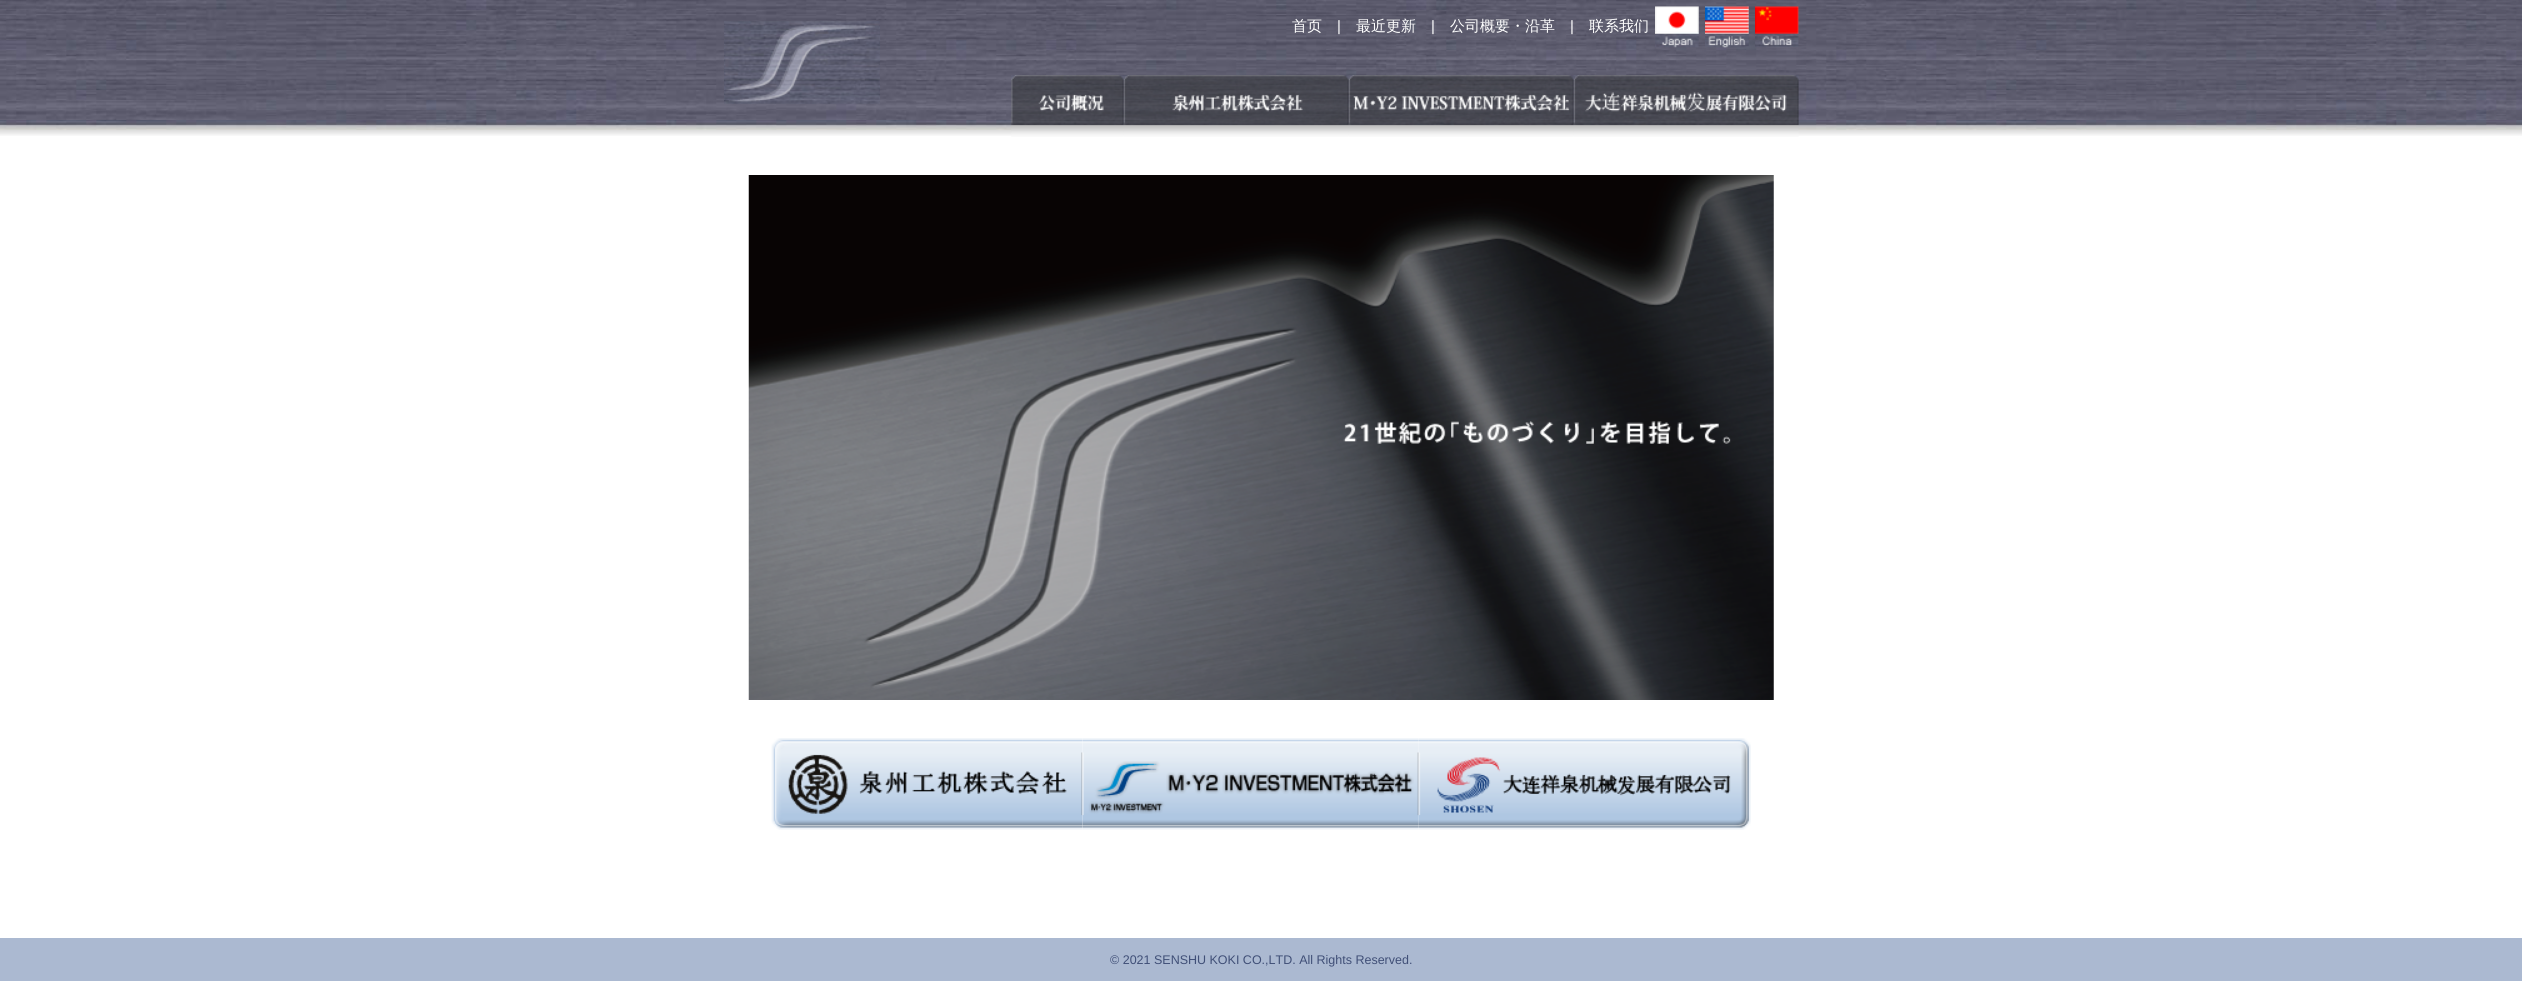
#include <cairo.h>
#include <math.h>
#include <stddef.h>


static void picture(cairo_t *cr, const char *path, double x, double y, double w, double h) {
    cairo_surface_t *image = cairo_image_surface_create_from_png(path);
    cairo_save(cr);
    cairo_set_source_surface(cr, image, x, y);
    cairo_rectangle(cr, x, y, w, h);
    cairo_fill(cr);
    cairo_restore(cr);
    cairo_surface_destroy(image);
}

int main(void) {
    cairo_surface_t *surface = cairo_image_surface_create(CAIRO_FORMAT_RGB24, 2522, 981);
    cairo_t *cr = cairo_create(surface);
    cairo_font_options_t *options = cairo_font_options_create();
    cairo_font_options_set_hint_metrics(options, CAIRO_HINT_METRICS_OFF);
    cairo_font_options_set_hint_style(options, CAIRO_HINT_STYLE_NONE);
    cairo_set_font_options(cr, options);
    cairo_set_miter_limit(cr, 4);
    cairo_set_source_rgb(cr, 1, 1, 1);
    cairo_paint(cr);
    picture(cr, "img1.png", 0, 0, 2522, 136);
    picture(cr, "img2.png", 724, 21, 156, 83);
    cairo_select_font_face(cr, "WenQuanYi Zen Hei Medium", CAIRO_FONT_SLANT_NORMAL, CAIRO_FONT_WEIGHT_NORMAL);
    cairo_set_font_size(cr, 15);
    cairo_set_source_rgb(cr, 1, 1, 1);
    cairo_move_to(cr, 1292, 31);
    cairo_show_text(cr, "首页");
    cairo_select_font_face(cr, "Liberation Sans", CAIRO_FONT_SLANT_NORMAL, CAIRO_FONT_WEIGHT_NORMAL);
    cairo_move_to(cr, 1337, 31);
    cairo_show_text(cr, "|");
    cairo_select_font_face(cr, "WenQuanYi Zen Hei Medium", CAIRO_FONT_SLANT_NORMAL, CAIRO_FONT_WEIGHT_NORMAL);
    cairo_move_to(cr, 1356, 31);
    cairo_show_text(cr, "最近更新");
    cairo_select_font_face(cr, "Liberation Sans", CAIRO_FONT_SLANT_NORMAL, CAIRO_FONT_WEIGHT_NORMAL);
    cairo_move_to(cr, 1431, 31);
    cairo_show_text(cr, "|");
    cairo_select_font_face(cr, "WenQuanYi Zen Hei Medium", CAIRO_FONT_SLANT_NORMAL, CAIRO_FONT_WEIGHT_NORMAL);
    cairo_move_to(cr, 1450, 31);
    cairo_show_text(cr, "公司概要・沿革");
    cairo_select_font_face(cr, "Liberation Sans", CAIRO_FONT_SLANT_NORMAL, CAIRO_FONT_WEIGHT_NORMAL);
    cairo_move_to(cr, 1570, 31);
    cairo_show_text(cr, "|");
    cairo_select_font_face(cr, "WenQuanYi Zen Hei Medium", CAIRO_FONT_SLANT_NORMAL, CAIRO_FONT_WEIGHT_NORMAL);
    cairo_move_to(cr, 1589, 31);
    cairo_show_text(cr, "联系我们");
    picture(cr, "img3.png", 1655, 6, 44, 42);
    picture(cr, "img4.png", 1705, 6, 44, 42);
    picture(cr, "img5.png", 1755, 6, 44, 41);
    picture(cr, "img6.png", 1011, 75, 113, 62);
    picture(cr, "img7.png", 1123, 75, 226, 62);
    picture(cr, "img8.png", 1348, 75, 226, 62);
    picture(cr, "img9.png", 1573, 75, 226, 62);
    picture(cr, "img10.png", 748, 175, 1026, 525);
    picture(cr, "img11.png", 771, 738, 312, 92);
    picture(cr, "img12.png", 1082, 738, 337, 92);
    picture(cr, "img13.png", 1418, 738, 333, 92);
    cairo_set_source_rgb(cr, 0.671, 0.725, 0.82);
    cairo_rectangle(cr, 0, 938, 2522, 43);
    cairo_fill(cr);
    cairo_select_font_face(cr, "Liberation Sans", CAIRO_FONT_SLANT_NORMAL, CAIRO_FONT_WEIGHT_NORMAL);
    cairo_set_font_size(cr, 12.5);
    cairo_set_source_rgb(cr, 0.251, 0.31, 0.467);
    cairo_move_to(cr, 1110, 964);
    cairo_show_text(cr, "© 2021 SENSHU KOKI CO.,LTD. All Rights Reserved.");
    cairo_surface_write_to_png(surface, "page.png");
    cairo_font_options_destroy(options);
    cairo_destroy(cr);
    cairo_surface_destroy(surface);
    return 0;
}
